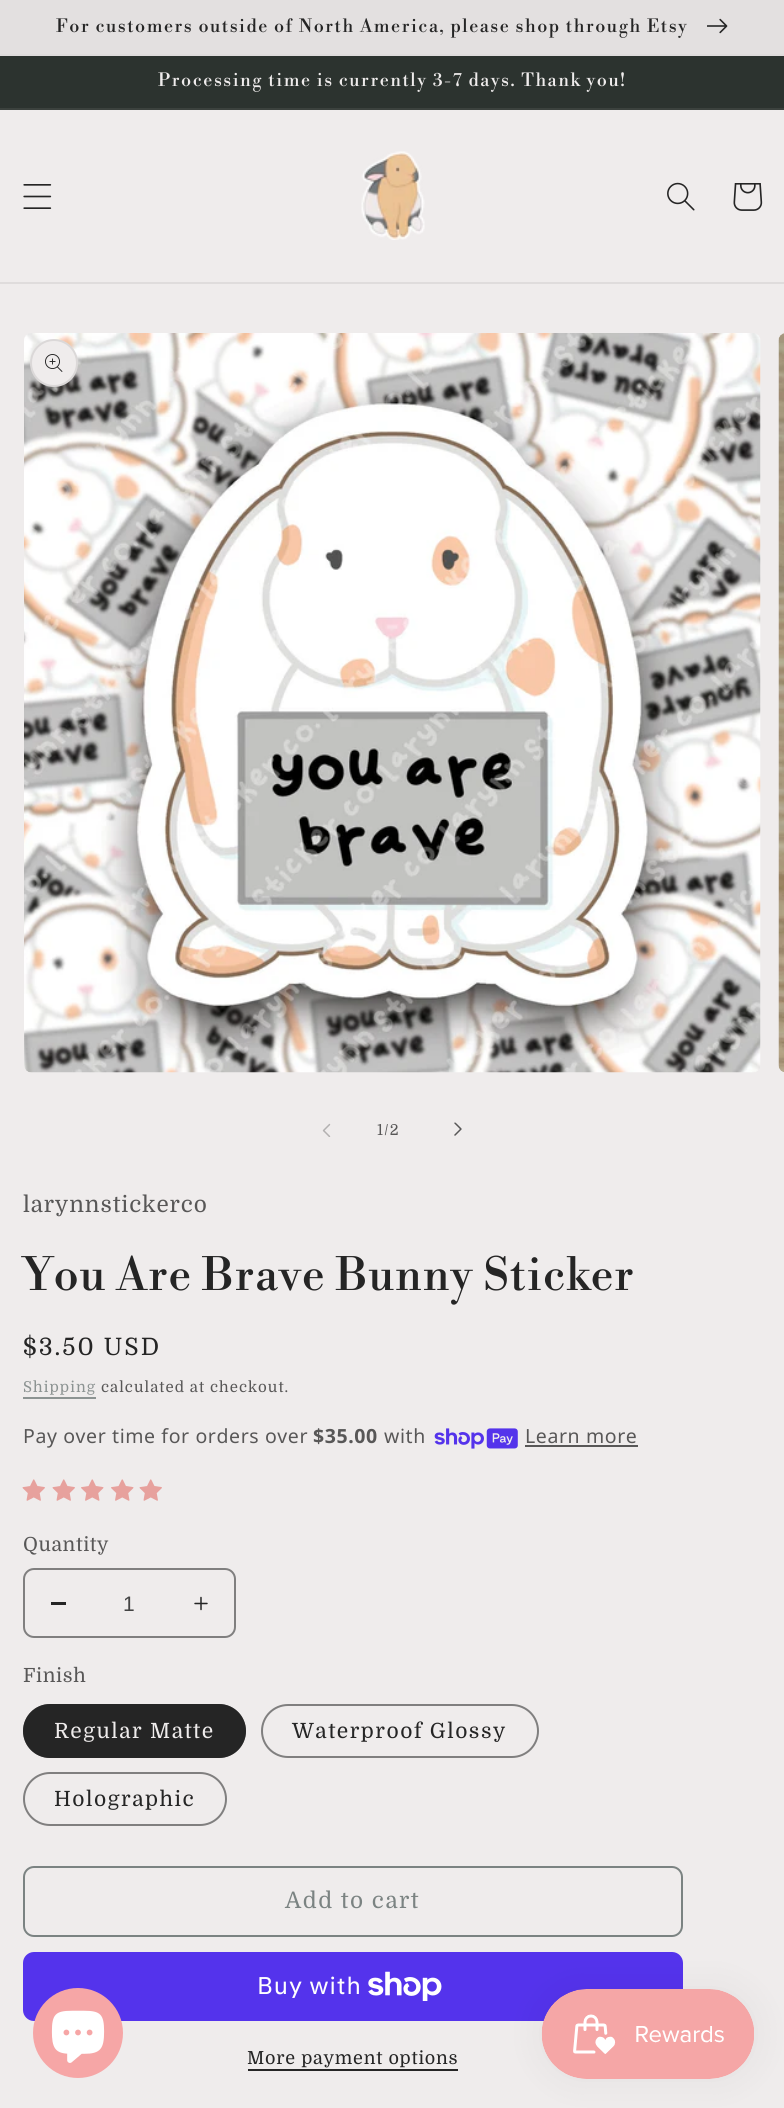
#include <cairo.h>
#include <math.h>
#include <stddef.h>


static void spaced_text(cairo_t *cr, double x, double y, const char *s, double letter, double word) {
    cairo_move_to(cr, x, y);
    while (*s) {
        char ch[5] = {0};
        int n = 0;
        do ch[n++] = *s++; while ((*s & 0xC0) == 0x80);
        cairo_show_text(cr, ch);
        cairo_rel_move_to(cr, letter + word * (*ch == ' '), 0);
    }
}

static void round_rect(cairo_t *cr, double x, double y, double w, double h, double r) {
    cairo_new_sub_path(cr);
    cairo_arc(cr, x + w - r, y + h - r, r, 0, M_PI / 2);
    cairo_arc(cr, x + r, y + h - r, r, M_PI / 2, M_PI);
    cairo_arc(cr, x + r, y + r, r, M_PI, 1.5 * M_PI);
    cairo_arc(cr, x + w - r, y + r, r, 1.5 * M_PI, 2 * M_PI);
    cairo_close_path(cr);
}

static void shadow(cairo_t *cr, double x, double y, double w, double h, double r, double blur, double alpha) {
    cairo_push_group_with_content(cr, CAIRO_CONTENT_ALPHA);
    cairo_set_operator(cr, CAIRO_OPERATOR_SOURCE);
    for (int i = 15; i >= -15 && fmin(w, h) + blur * i / 3 > 0; i -= 2) {
        double e = blur * i / 6;
        cairo_set_source_rgba(cr, 0, 0, 0, alpha * erfc((i - 1) / 8.5) / 2);
        round_rect(cr, x - e, y - e, w + 2 * e, h + 2 * e, fmax(0, fmin(r + e + blur * .6, fmin(w, h) / 2 + e)));
        cairo_fill(cr);
    }
    cairo_pattern_t *soft = cairo_pop_group(cr);
    cairo_mask(cr, soft);
    cairo_pattern_destroy(soft);
}

static void picture(cairo_t *cr, const char *path, double x, double y, double w, double h) {
    cairo_surface_t *image = cairo_image_surface_create_from_png(path);
    cairo_save(cr);
    cairo_set_source_surface(cr, image, x, y);
    cairo_rectangle(cr, x, y, w, h);
    cairo_fill(cr);
    cairo_restore(cr);
    cairo_surface_destroy(image);
}

int main(void) {
    cairo_surface_t *surface = cairo_image_surface_create(CAIRO_FORMAT_RGB24, 784, 2108);
    cairo_t *cr = cairo_create(surface);
    cairo_font_options_t *options = cairo_font_options_create();
    cairo_font_options_set_hint_metrics(options, CAIRO_HINT_METRICS_OFF);
    cairo_font_options_set_hint_style(options, CAIRO_HINT_STYLE_NONE);
    cairo_set_font_options(cr, options);
    cairo_set_miter_limit(cr, 4);
    cairo_set_source_rgb(cr, 0.937, 0.925, 0.925);
    cairo_paint(cr);
    cairo_set_source_rgb(cr, 0.875, 0.863, 0.863);
    cairo_rectangle(cr, 0, 54, 784, 2);
    cairo_fill(cr);
    cairo_set_source_rgb(cr, 0.89, 0.878, 0.878);
    cairo_rectangle(cr, 0, 0, 784, 54);
    cairo_fill(cr);
    cairo_select_font_face(cr, "Libre Bodoni", CAIRO_FONT_SLANT_NORMAL, CAIRO_FONT_WEIGHT_NORMAL);
    cairo_set_font_size(cr, 18);
    cairo_set_source_rgb(cr, 0.145, 0.145, 0.145);
    spaced_text(cr, 56, 32, "For customers outside of North America, please shop through Etsy", 1.5, 0);
    picture(cr, "img1.png", 707, 18, 21, 16);
    cairo_set_source_rgb(cr, 0.173, 0.2, 0.184);
    cairo_rectangle(cr, 0, 56, 784, 52);
    cairo_fill(cr);
    cairo_set_source_rgb(cr, 0.235, 0.259, 0.243);
    cairo_rectangle(cr, 0, 108, 784, 2);
    cairo_fill(cr);
    cairo_set_source_rgb(cr, 0.937, 0.925, 0.925);
    spaced_text(cr, 158, 86, "Processing time is currently 3-7 days. Thank you!", 1.5, 0);
    cairo_set_source_rgb(cr, 0.875, 0.863, 0.863);
    cairo_rectangle(cr, 0, 282, 784, 2);
    cairo_fill(cr);
    picture(cr, "img2.png", 23, 184, 29, 25);
    picture(cr, "img3.png", 361, 151, 64, 89);
    picture(cr, "img4.png", 667, 182, 28, 29);
    picture(cr, "img5.png", 733, 183, 30, 28);
    picture(cr, "img6.png", 24, 333, 737, 740);
    cairo_set_source_rgb(cr, 0.937, 0.925, 0.925);
    cairo_arc(cr, 54, 363, 24, 0, 2 * M_PI);
    cairo_fill(cr);
    cairo_arc(cr, 54, 363, 23, 0, 2 * M_PI);
    cairo_set_source_rgba(cr, 0.145, 0.145, 0.145, 0.1);
    cairo_stroke(cr);
    picture(cr, "img7.png", 45, 354, 18, 18);
    picture(cr, "img8.png", 778, 333, 6, 739);
    picture(cr, "img9.png", 322, 1123, 9, 14);
    cairo_select_font_face(cr, "Domine", CAIRO_FONT_SLANT_NORMAL, CAIRO_FONT_WEIGHT_NORMAL);
    cairo_set_font_size(cr, 15);
    cairo_set_source_rgb(cr, 0.345, 0.341, 0.341);
    spaced_text(cr, 377, 1135, "1/2", 1.05, 0);
    picture(cr, "img10.png", 454, 1122, 8, 14);
    cairo_set_font_size(cr, 22.5);
    spaced_text(cr, 23, 1212, "larynnstickerco", 0.9, 0);
    cairo_select_font_face(cr, "Libre Bodoni", CAIRO_FONT_SLANT_NORMAL, CAIRO_FONT_WEIGHT_NORMAL);
    cairo_set_font_size(cr, 45);
    cairo_set_source_rgb(cr, 0.145, 0.145, 0.145);
    spaced_text(cr, 23, 1290, "You Are Brave Bunny Sticker", 0.9, 0);
    cairo_select_font_face(cr, "Domine", CAIRO_FONT_SLANT_NORMAL, CAIRO_FONT_WEIGHT_NORMAL);
    cairo_set_font_size(cr, 24);
    spaced_text(cr, 23, 1355, "$3.50 USD", 2, 0);
    cairo_set_font_size(cr, 15);
    cairo_set_source_rgb(cr, 0.549, 0.576, 0.573);
    spaced_text(cr, 23, 1392, "Shipping", 1.05, 0);
    cairo_rectangle(cr, 23, 1397, 73, 2);
    cairo_fill(cr);
    cairo_set_source_rgb(cr, 0.345, 0.341, 0.341);
    spaced_text(cr, 101, 1392, "calculated at checkout.", 1.05, 0);
    cairo_select_font_face(cr, "Noto Sans", CAIRO_FONT_SLANT_NORMAL, CAIRO_FONT_WEIGHT_NORMAL);
    cairo_set_font_size(cr, 19.5);
    spaced_text(cr, 23, 1443, "Pay over time for orders over", 0.6, 0);
    cairo_select_font_face(cr, "Noto Sans", CAIRO_FONT_SLANT_NORMAL, CAIRO_FONT_WEIGHT_BOLD);
    spaced_text(cr, 313, 1443, "$35.00", 0.6, 0);
    cairo_select_font_face(cr, "Noto Sans", CAIRO_FONT_SLANT_NORMAL, CAIRO_FONT_WEIGHT_NORMAL);
    spaced_text(cr, 384, 1443, "with", 0.6, 0);
    picture(cr, "img11.png", 434, 1428, 84, 21);
    spaced_text(cr, 525, 1443, "Learn more", 0.6, 0);
    cairo_rectangle(cr, 525, 1445, 113, 2);
    cairo_fill(cr);
    picture(cr, "img12.png", 22, 1479, 23, 22);
    picture(cr, "img12.png", 52, 1479, 23, 22);
    picture(cr, "img13.png", 81, 1479, 23, 22);
    picture(cr, "img13.png", 111, 1479, 23, 22);
    picture(cr, "img12.png", 139, 1479, 23, 22);
    cairo_select_font_face(cr, "Domine", CAIRO_FONT_SLANT_NORMAL, CAIRO_FONT_WEIGHT_NORMAL);
    spaced_text(cr, 23, 1551, "Quantity", 0.6, 0);
    cairo_set_source_rgb(cr, 0.145, 0.145, 0.145);
    cairo_rectangle(cr, 51, 1602, 15, 3);
    cairo_fill(cr);
    picture(cr, "img14.png", 194, 1596, 14, 15);
    round_rect(cr, 24, 1569, 211, 68, 10);
    cairo_set_source_rgb(cr, 0.502, 0.498, 0.498);
    cairo_stroke(cr);
    cairo_select_font_face(cr, "Liberation Sans", CAIRO_FONT_SLANT_NORMAL, CAIRO_FONT_WEIGHT_NORMAL);
    cairo_set_font_size(cr, 21);
    cairo_set_source_rgb(cr, 0.263, 0.263, 0.263);
    cairo_move_to(cr, 123, 1611);
    cairo_show_text(cr, "1");
    cairo_select_font_face(cr, "Domine", CAIRO_FONT_SLANT_NORMAL, CAIRO_FONT_WEIGHT_NORMAL);
    cairo_set_font_size(cr, 19.5);
    cairo_set_source_rgb(cr, 0.345, 0.341, 0.341);
    spaced_text(cr, 23, 1682, "Finish", 0.6, 0);
    cairo_set_source_rgb(cr, 0.145, 0.145, 0.145);
    round_rect(cr, 23, 1704, 223, 54, 27);
    cairo_fill(cr);
    round_rect(cr, 24, 1705, 221, 52, 26);
    cairo_set_source_rgba(cr, 0.145, 0.145, 0.145, 0.55);
    cairo_stroke(cr);
    cairo_set_font_size(cr, 21);
    cairo_set_source_rgb(cr, 0.937, 0.925, 0.925);
    spaced_text(cr, 54, 1738, "Regular Matte", 1.5, 0);
    round_rect(cr, 262, 1705, 276, 52, 26);
    cairo_set_source_rgb(cr, 0.502, 0.498, 0.498);
    cairo_stroke(cr);
    cairo_set_source_rgb(cr, 0.145, 0.145, 0.145);
    spaced_text(cr, 292, 1738, "Waterproof Glossy", 1.5, 0);
    round_rect(cr, 24, 1773, 202, 52, 26);
    cairo_set_source_rgb(cr, 0.502, 0.498, 0.498);
    cairo_stroke(cr);
    cairo_set_source_rgb(cr, 0.145, 0.145, 0.145);
    spaced_text(cr, 54, 1806, "Holographic", 1.5, 0);
    round_rect(cr, 24, 1867, 658, 69, 10);
    cairo_set_source_rgb(cr, 0.482, 0.514, 0.51);
    cairo_stroke(cr);
    cairo_set_font_size(cr, 22.5);
    spaced_text(cr, 285, 1908, "Add to cart", 1.5, 0);
    cairo_set_source_rgb(cr, 0.329, 0.2, 0.922);
    round_rect(cr, 23, 1952, 660, 69, 11);
    cairo_fill(cr);
    cairo_select_font_face(cr, "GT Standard", CAIRO_FONT_SLANT_NORMAL, CAIRO_FONT_WEIGHT_NORMAL);
    cairo_set_font_size(cr, 24);
    cairo_set_source_rgb(cr, 1, 1, 1);
    spaced_text(cr, 257, 1994, "Buy with", 0.9, 0);
    picture(cr, "img15.png", 368, 1971, 74, 30);
    cairo_select_font_face(cr, "Domine", CAIRO_FONT_SLANT_NORMAL, CAIRO_FONT_WEIGHT_NORMAL);
    cairo_set_font_size(cr, 18);
    cairo_set_source_rgb(cr, 0.145, 0.145, 0.145);
    spaced_text(cr, 247, 2064, "More payment options", 0.75, 0);
    cairo_rectangle(cr, 248, 2069, 210, 2);
    cairo_fill(cr);
    cairo_set_source_rgb(cr, 0.961, 0.651, 0.651);
    cairo_arc(cr, 78, 2033, 45, 0, 2 * M_PI);
    cairo_fill(cr);
    picture(cr, "img16.png", 51, 2010, 54, 53);
    cairo_set_source_rgb(cr, 0, 0, 0);
    shadow(cr, 542, 1989, 213, 90, 45, 19, 0.05);
    picture(cr, "img17.png", 541, 1989, 213, 90);
    cairo_surface_write_to_png(surface, "page.png");
    cairo_font_options_destroy(options);
    cairo_destroy(cr);
    cairo_surface_destroy(surface);
    return 0;
}
